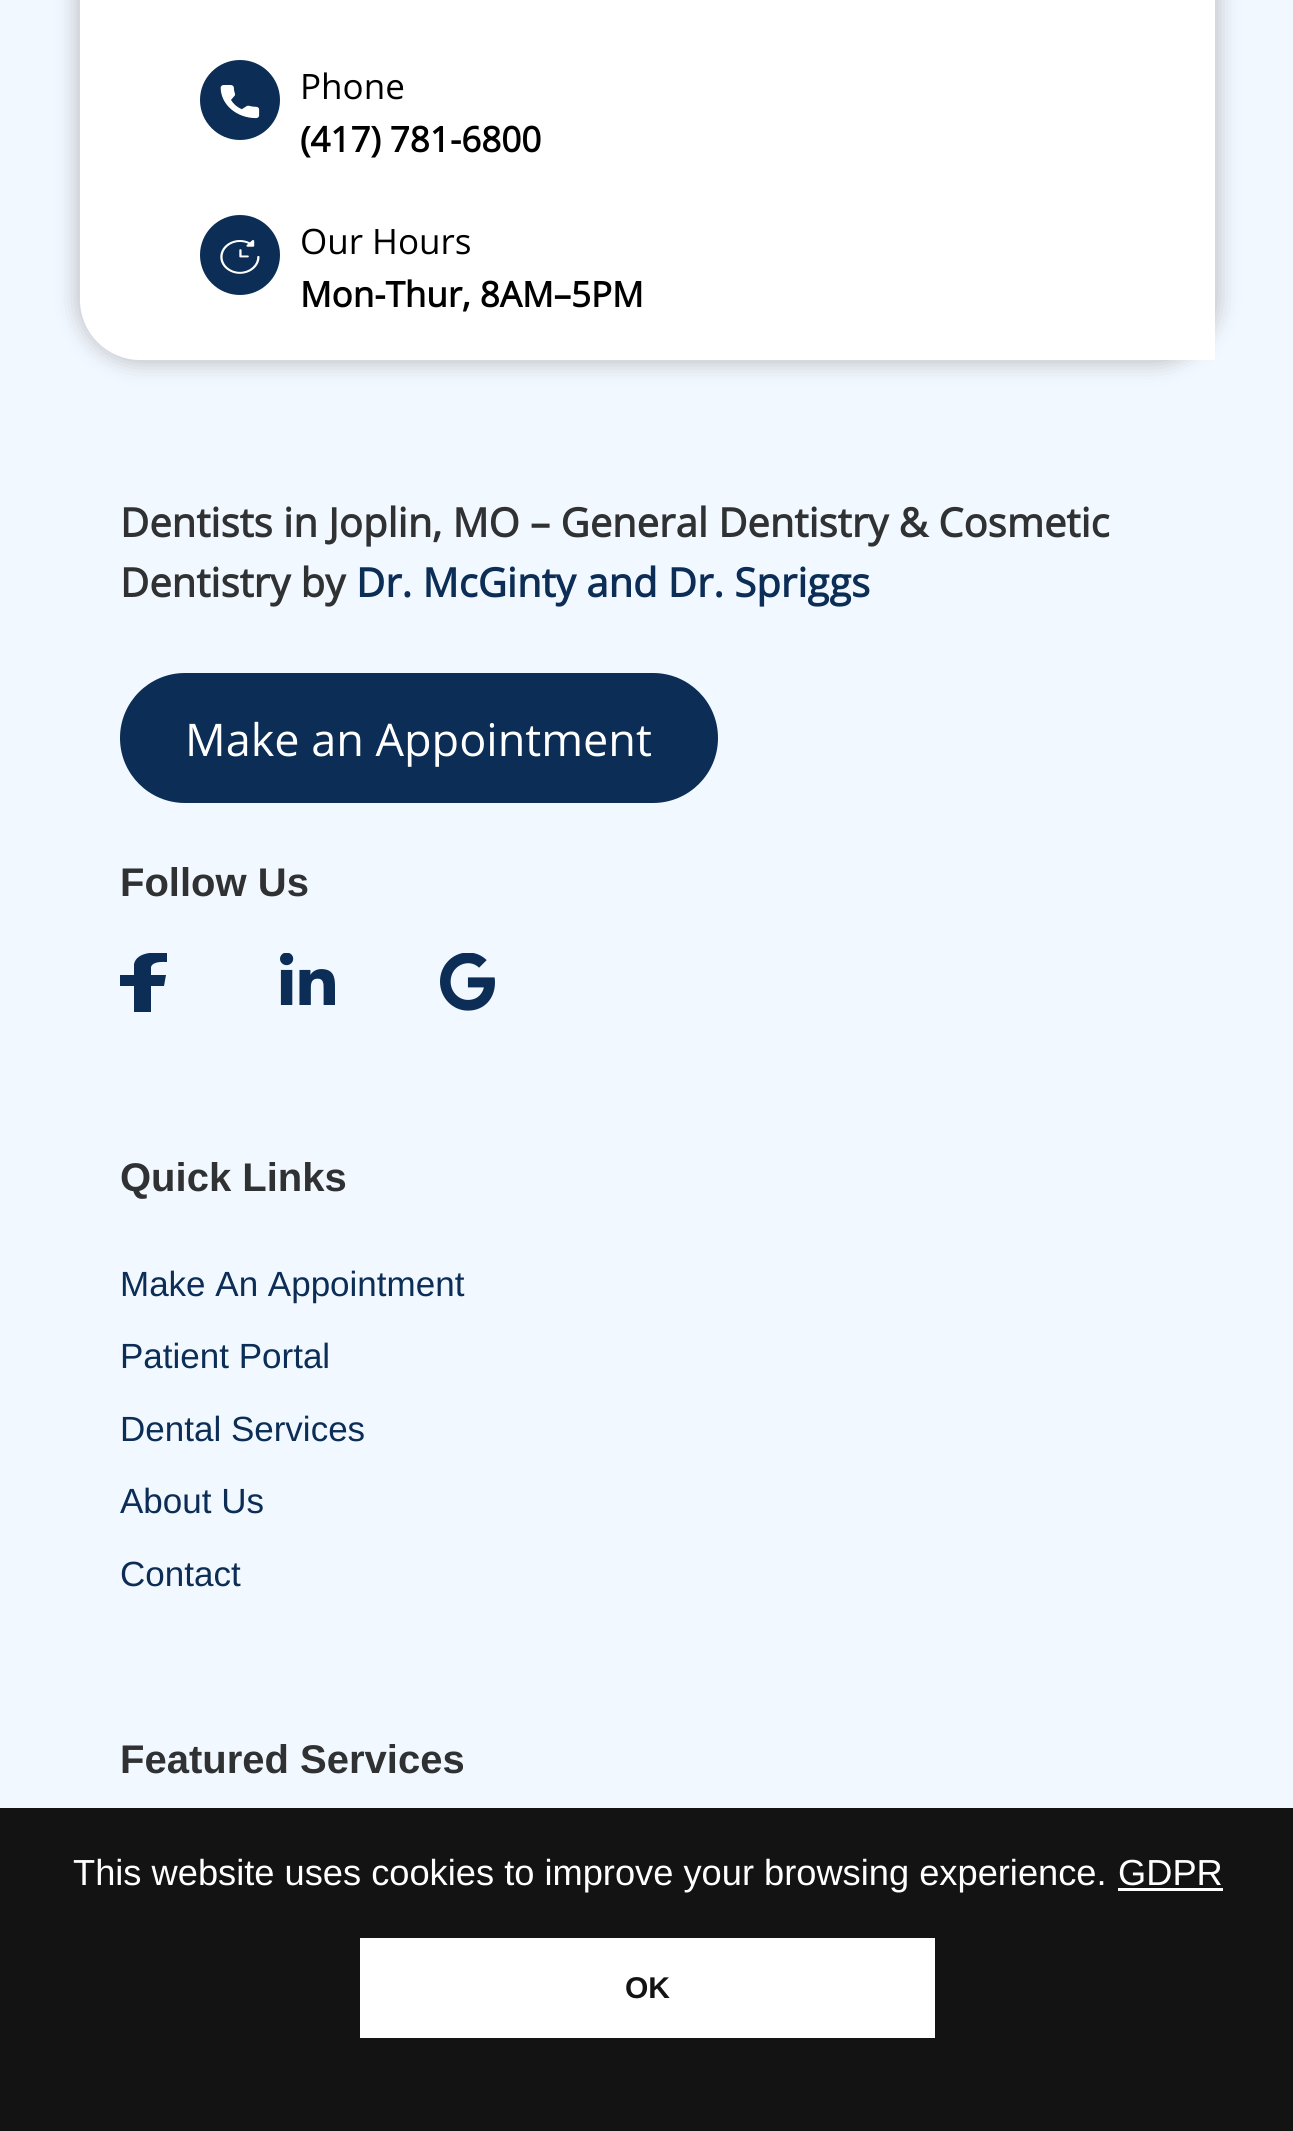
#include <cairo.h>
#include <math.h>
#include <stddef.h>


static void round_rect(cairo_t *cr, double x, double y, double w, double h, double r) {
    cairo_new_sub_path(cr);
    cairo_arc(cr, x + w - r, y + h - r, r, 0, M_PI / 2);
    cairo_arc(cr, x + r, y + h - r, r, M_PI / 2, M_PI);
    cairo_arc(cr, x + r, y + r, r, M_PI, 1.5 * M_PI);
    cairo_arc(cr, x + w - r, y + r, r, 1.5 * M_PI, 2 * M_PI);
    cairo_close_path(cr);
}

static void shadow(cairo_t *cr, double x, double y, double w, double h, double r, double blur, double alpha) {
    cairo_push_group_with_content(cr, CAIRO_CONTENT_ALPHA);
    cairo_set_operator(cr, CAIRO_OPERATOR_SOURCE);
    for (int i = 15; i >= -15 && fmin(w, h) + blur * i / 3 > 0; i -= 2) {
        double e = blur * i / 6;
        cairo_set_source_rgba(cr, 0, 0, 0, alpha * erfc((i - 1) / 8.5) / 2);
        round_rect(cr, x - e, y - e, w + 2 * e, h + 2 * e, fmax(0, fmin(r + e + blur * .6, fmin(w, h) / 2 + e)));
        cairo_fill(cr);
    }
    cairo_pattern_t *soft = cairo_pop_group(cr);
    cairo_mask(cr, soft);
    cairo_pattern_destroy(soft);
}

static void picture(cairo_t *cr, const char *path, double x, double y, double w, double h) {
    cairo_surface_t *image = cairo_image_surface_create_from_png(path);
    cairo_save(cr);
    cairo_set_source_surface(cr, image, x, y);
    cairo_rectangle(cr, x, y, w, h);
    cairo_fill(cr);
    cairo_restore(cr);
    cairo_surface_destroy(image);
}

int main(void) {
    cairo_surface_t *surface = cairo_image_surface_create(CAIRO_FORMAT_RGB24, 1293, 2131);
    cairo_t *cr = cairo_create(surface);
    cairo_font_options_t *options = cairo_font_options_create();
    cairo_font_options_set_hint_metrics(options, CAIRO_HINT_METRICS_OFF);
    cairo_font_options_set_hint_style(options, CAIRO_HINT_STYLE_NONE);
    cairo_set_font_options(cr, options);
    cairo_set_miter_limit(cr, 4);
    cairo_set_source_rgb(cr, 0.949, 0.969, 1);
    cairo_paint(cr);
    cairo_set_source_rgb(cr, 0, 0, 0);
    shadow(cr, 75, -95, 1145, 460, 65, 10, 0.2);
    cairo_set_source_rgb(cr, 1, 1, 1);
    cairo_new_path(cr);
    cairo_move_to(cr, 80, -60);
    cairo_line_to(cr, 1155, -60);
    cairo_curve_to(cr, 1188, -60, 1215, -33, 1215, 0);
    cairo_line_to(cr, 1215, 360);
    cairo_line_to(cr, 140, 360);
    cairo_curve_to(cr, 107, 360, 80, 333, 80, 300);
    cairo_close_path(cr);
    cairo_fill(cr);
    cairo_set_source_rgb(cr, 0.043, 0.176, 0.337);
    cairo_arc(cr, 240, 100, 40, 0, 2 * M_PI);
    cairo_fill(cr);
    picture(cr, "img1.png", 220, 85, 40, 34);
    cairo_select_font_face(cr, "Open Sans", CAIRO_FONT_SLANT_NORMAL, CAIRO_FONT_WEIGHT_NORMAL);
    cairo_set_font_size(cr, 35);
    cairo_set_source_rgb(cr, 0, 0, 0);
    cairo_move_to(cr, 300, 99);
    cairo_show_text(cr, "Phone");
    cairo_select_font_face(cr, "Open Sans", CAIRO_FONT_SLANT_NORMAL, CAIRO_FONT_WEIGHT_BOLD);
    cairo_move_to(cr, 300, 152);
    cairo_show_text(cr, "(417) 781-6800");
    cairo_set_source_rgb(cr, 0.043, 0.176, 0.337);
    cairo_new_path(cr);
    cairo_arc(cr, 240, 255, 40, 0, 2 * M_PI);
    cairo_fill(cr);
    picture(cr, "img2.png", 220, 240, 40, 34);
    cairo_select_font_face(cr, "Open Sans", CAIRO_FONT_SLANT_NORMAL, CAIRO_FONT_WEIGHT_NORMAL);
    cairo_set_source_rgb(cr, 0, 0, 0);
    cairo_move_to(cr, 300, 254);
    cairo_show_text(cr, "Our Hours");
    cairo_select_font_face(cr, "Open Sans", CAIRO_FONT_SLANT_NORMAL, CAIRO_FONT_WEIGHT_BOLD);
    cairo_move_to(cr, 300, 307);
    cairo_show_text(cr, "Mon-Thur, 8AM–5PM");
    cairo_set_font_size(cr, 40);
    cairo_set_source_rgb(cr, 0.188, 0.192, 0.2);
    cairo_move_to(cr, 120, 537);
    cairo_show_text(cr, "Dentists in Joplin, MO – General Dentistry & Cosmetic");
    cairo_move_to(cr, 120, 597);
    cairo_show_text(cr, "Dentistry by");
    cairo_set_source_rgb(cr, 0.043, 0.176, 0.337);
    cairo_move_to(cr, 356, 597);
    cairo_show_text(cr, "Dr. McGinty and Dr. Spriggs");
    round_rect(cr, 120, 673, 598, 130, 65);
    cairo_fill(cr);
    cairo_select_font_face(cr, "Open Sans", CAIRO_FONT_SLANT_NORMAL, CAIRO_FONT_WEIGHT_NORMAL);
    cairo_set_font_size(cr, 45);
    cairo_set_source_rgb(cr, 1, 1, 1);
    cairo_move_to(cr, 185, 756);
    cairo_show_text(cr, "Make an Appointment");
    cairo_select_font_face(cr, "Liberation Sans", CAIRO_FONT_SLANT_NORMAL, CAIRO_FONT_WEIGHT_BOLD);
    cairo_set_font_size(cr, 40);
    cairo_set_source_rgb(cr, 0.188, 0.192, 0.2);
    cairo_move_to(cr, 120, 896);
    cairo_show_text(cr, "Follow Us");
    cairo_save(cr);
    cairo_rectangle(cr, 120, 953, 48, 60);
    cairo_clip(cr);
    cairo_set_source_rgb(cr, 0.043, 0.176, 0.337);
    cairo_new_path(cr);
    cairo_move_to(cr, 164, 986);
    cairo_line_to(cr, 166, 975);
    cairo_line_to(cr, 151, 975);
    cairo_line_to(cr, 151, 967);
    cairo_curve_to(cr, 153, 961, 163, 962, 167, 962);
    cairo_line_to(cr, 167, 953);
    cairo_curve_to(cr, 157, 952, 137, 951, 134, 964);
    cairo_line_to(cr, 134, 975);
    cairo_line_to(cr, 120, 975);
    cairo_line_to(cr, 120, 986);
    cairo_line_to(cr, 134, 986);
    cairo_line_to(cr, 134, 1012);
    cairo_line_to(cr, 151, 1012);
    cairo_line_to(cr, 151, 986);
    cairo_close_path(cr);
    cairo_fill(cr);
    cairo_restore(cr);
    picture(cr, "img3.png", 280, 953, 55, 52);
    picture(cr, "img4.png", 440, 953, 55, 58);
    cairo_move_to(cr, 120, 1191);
    cairo_show_text(cr, "Quick Links");
    cairo_select_font_face(cr, "Liberation Sans", CAIRO_FONT_SLANT_NORMAL, CAIRO_FONT_WEIGHT_NORMAL);
    cairo_set_font_size(cr, 35);
    cairo_set_source_rgb(cr, 0.043, 0.176, 0.337);
    cairo_move_to(cr, 120, 1296);
    cairo_show_text(cr, "Make An Appointment");
    cairo_move_to(cr, 120, 1368);
    cairo_show_text(cr, "Patient Portal");
    cairo_move_to(cr, 120, 1441);
    cairo_show_text(cr, "Dental Services");
    cairo_move_to(cr, 120, 1513);
    cairo_show_text(cr, "About Us");
    cairo_move_to(cr, 120, 1586);
    cairo_show_text(cr, "Contact");
    cairo_select_font_face(cr, "Liberation Sans", CAIRO_FONT_SLANT_NORMAL, CAIRO_FONT_WEIGHT_BOLD);
    cairo_set_font_size(cr, 40);
    cairo_set_source_rgb(cr, 0.188, 0.192, 0.2);
    cairo_move_to(cr, 120, 1773);
    cairo_show_text(cr, "Featured Services");
    cairo_set_source_rgb(cr, 0.078, 0.078, 0.078);
    cairo_rectangle(cr, 0, 1808, 1293, 323);
    cairo_fill(cr);
    cairo_select_font_face(cr, "Liberation Sans", CAIRO_FONT_SLANT_NORMAL, CAIRO_FONT_WEIGHT_NORMAL);
    cairo_set_font_size(cr, 36.25);
    cairo_set_source_rgb(cr, 1, 1, 1);
    cairo_move_to(cr, 73, 1885);
    cairo_show_text(cr, "This website uses cookies to improve your browsing experience.");
    cairo_move_to(cr, 1118, 1885);
    cairo_show_text(cr, "GDPR");
    cairo_rectangle(cr, 1118, 1888, 105, 3);
    cairo_fill(cr);
    cairo_rectangle(cr, 360, 1938, 575, 100);
    cairo_fill(cr);
    cairo_select_font_face(cr, "Liberation Sans", CAIRO_FONT_SLANT_NORMAL, CAIRO_FONT_WEIGHT_BOLD);
    cairo_set_font_size(cr, 30);
    cairo_set_source_rgb(cr, 0.078, 0.078, 0.078);
    cairo_move_to(cr, 625, 1998);
    cairo_show_text(cr, "OK");
    cairo_surface_write_to_png(surface, "page.png");
    cairo_font_options_destroy(options);
    cairo_destroy(cr);
    cairo_surface_destroy(surface);
    return 0;
}
